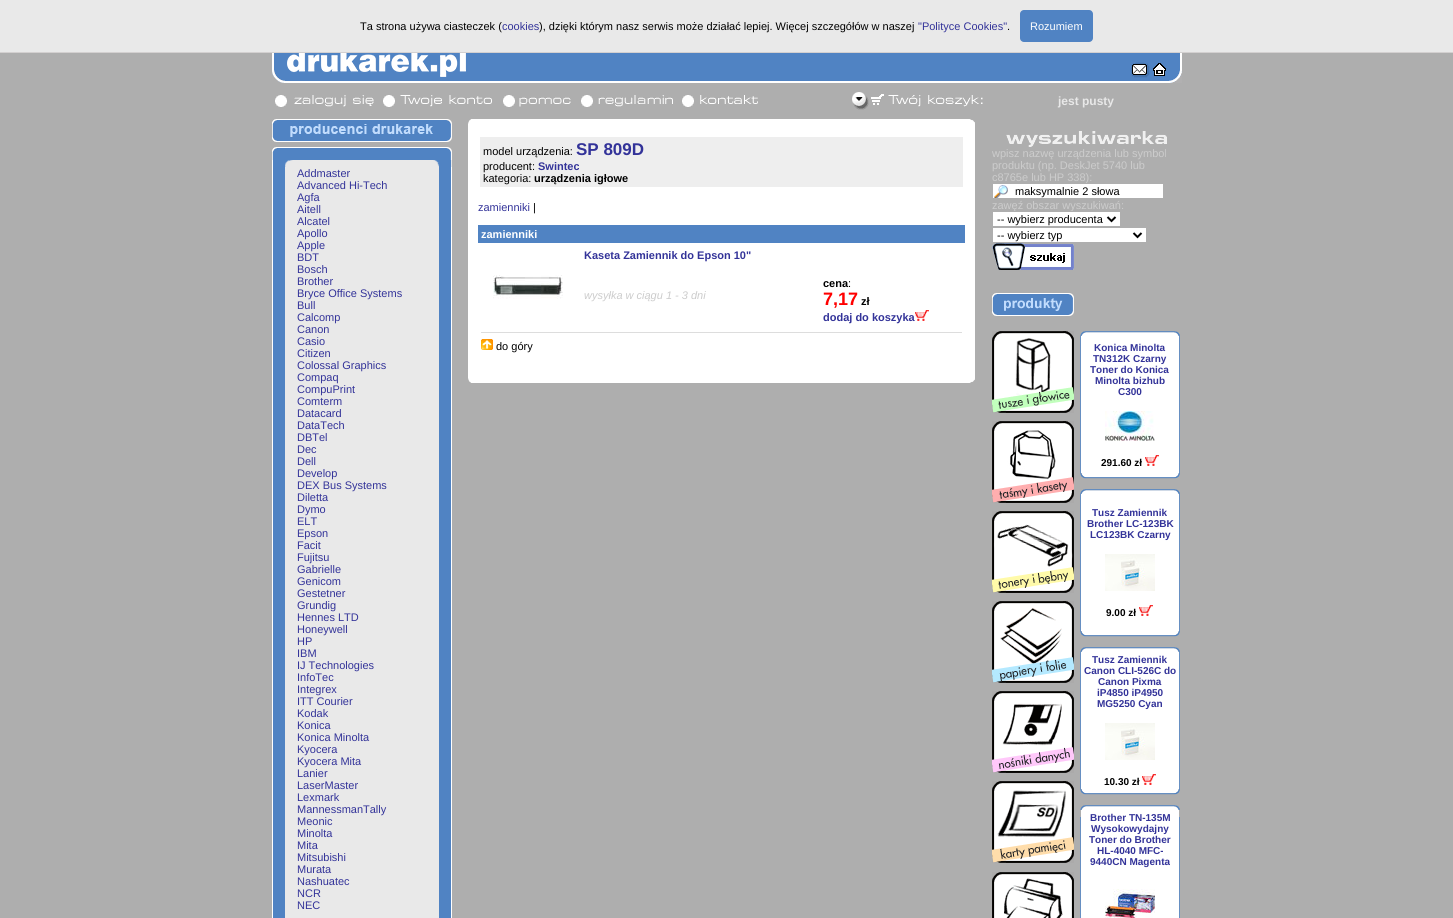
#include <cairo.h>
#include <math.h>
#include <stddef.h>


static void round_rect(cairo_t *cr, double x, double y, double w, double h, double r) {
    cairo_new_sub_path(cr);
    cairo_arc(cr, x + w - r, y + h - r, r, 0, M_PI / 2);
    cairo_arc(cr, x + r, y + h - r, r, M_PI / 2, M_PI);
    cairo_arc(cr, x + r, y + r, r, M_PI, 1.5 * M_PI);
    cairo_arc(cr, x + w - r, y + r, r, 1.5 * M_PI, 2 * M_PI);
    cairo_close_path(cr);
}

static void picture(cairo_t *cr, const char *path, double x, double y, double w, double h) {
    cairo_surface_t *image = cairo_image_surface_create_from_png(path);
    cairo_save(cr);
    cairo_set_source_surface(cr, image, x, y);
    cairo_rectangle(cr, x, y, w, h);
    cairo_fill(cr);
    cairo_restore(cr);
    cairo_surface_destroy(image);
}

int main(void) {
    cairo_surface_t *surface = cairo_image_surface_create(CAIRO_FORMAT_RGB24, 1453, 918);
    cairo_t *cr = cairo_create(surface);
    cairo_font_options_t *options = cairo_font_options_create();
    cairo_font_options_set_hint_metrics(options, CAIRO_HINT_METRICS_OFF);
    cairo_font_options_set_hint_style(options, CAIRO_HINT_STYLE_NONE);
    cairo_set_font_options(cr, options);
    cairo_set_miter_limit(cr, 4);
    cairo_set_source_rgb(cr, 0.682, 0.682, 0.682);
    cairo_paint(cr);
    cairo_set_source_rgb(cr, 0.914, 0.914, 0.914);
    cairo_rectangle(cr, 0, 0, 1453, 52);
    cairo_fill(cr);
    cairo_set_source_rgb(cr, 0.827, 0.816, 0.816);
    cairo_rectangle(cr, 0, 52, 1453, 1);
    cairo_fill(cr);
    cairo_select_font_face(cr, "Liberation Sans", CAIRO_FONT_SLANT_NORMAL, CAIRO_FONT_WEIGHT_NORMAL);
    cairo_set_font_size(cr, 11);
    cairo_set_source_rgb(cr, 0, 0, 0);
    cairo_move_to(cr, 360, 30);
    cairo_show_text(cr, "Ta strona używa ciasteczek (");
    cairo_set_source_rgb(cr, 0.2, 0.2, 0.6);
    cairo_move_to(cr, 502, 30);
    cairo_show_text(cr, "cookies");
    cairo_set_source_rgb(cr, 0, 0, 0);
    cairo_move_to(cr, 539, 30);
    cairo_show_text(cr, "), dzięki którym nasz serwis może działać lepiej. Więcej szczegółów w naszej");
    cairo_set_source_rgb(cr, 0.2, 0.2, 0.6);
    cairo_move_to(cr, 918, 30);
    cairo_show_text(cr, "\"Polityce Cookies\"");
    cairo_set_source_rgb(cr, 0, 0, 0);
    cairo_move_to(cr, 1007, 30);
    cairo_show_text(cr, ".");
    cairo_set_source_rgb(cr, 0.314, 0.514, 0.765);
    round_rect(cr, 1020, 10, 73, 32, 4);
    cairo_fill(cr);
    cairo_set_source_rgb(cr, 1, 1, 1);
    cairo_move_to(cr, 1030, 30);
    cairo_show_text(cr, "Rozumiem");
    picture(cr, "img1.png", 272, 53, 13, 30);
    picture(cr, "img2.png", 285, 53, 183, 26);
    picture(cr, "img3.png", 285, 79, 183, 4);
    picture(cr, "img4.png", 468, 53, 510, 30);
    cairo_set_source_rgb(cr, 0.314, 0.514, 0.765);
    cairo_rectangle(cr, 979, 53, 150, 28);
    cairo_fill(cr);
    picture(cr, "img5.png", 978, 53, 1, 30);
    cairo_set_source_rgb(cr, 1, 1, 1);
    cairo_rectangle(cr, 979, 81, 150, 2);
    cairo_fill(cr);
    picture(cr, "img6.png", 1129, 53, 40, 9);
    picture(cr, "img7.png", 1129, 62, 22, 16);
    picture(cr, "img8.png", 1151, 62, 18, 16);
    picture(cr, "img9.png", 1129, 78, 40, 5);
    picture(cr, "img10.png", 1169, 53, 13, 30);
    picture(cr, "img11.png", 275, 95, 99, 12);
    picture(cr, "img12.png", 383, 95, 109, 12);
    picture(cr, "img13.png", 503, 95, 68, 12);
    picture(cr, "img14.png", 581, 95, 92, 12);
    picture(cr, "img15.png", 682, 95, 76, 12);
    picture(cr, "img16.png", 852, 92, 131, 18);
    cairo_select_font_face(cr, "Liberation Sans", CAIRO_FONT_SLANT_NORMAL, CAIRO_FONT_WEIGHT_BOLD);
    cairo_set_font_size(cr, 12);
    cairo_set_source_rgb(cr, 0.91, 0.91, 0.91);
    cairo_move_to(cr, 1058, 105);
    cairo_show_text(cr, "jest pusty");
    picture(cr, "img17.png", 272, 119, 180, 5);
    picture(cr, "img18.png", 272, 124, 180, 13);
    picture(cr, "img19.png", 290, 124, 143, 13);
    picture(cr, "img20.png", 272, 137, 180, 5);
    picture(cr, "img17.png", 272, 147, 180, 5);
    picture(cr, "img21.png", 272, 152, 180, 8);
    picture(cr, "img22.png", 272, 160, 180, 7);
    picture(cr, "img23.png", 272, 167, 25, 751);
    picture(cr, "img24.png", 297, 167, 155, 751);
    cairo_select_font_face(cr, "Liberation Sans", CAIRO_FONT_SLANT_NORMAL, CAIRO_FONT_WEIGHT_NORMAL);
    cairo_set_font_size(cr, 11);
    cairo_set_source_rgb(cr, 0.2, 0.2, 0.6);
    cairo_move_to(cr, 297, 177);
    cairo_show_text(cr, "Addmaster");
    cairo_move_to(cr, 297, 189);
    cairo_show_text(cr, "Advanced Hi-Tech");
    cairo_move_to(cr, 297, 201);
    cairo_show_text(cr, "Agfa");
    cairo_move_to(cr, 297, 213);
    cairo_show_text(cr, "Aitell");
    cairo_move_to(cr, 297, 225);
    cairo_show_text(cr, "Alcatel");
    cairo_move_to(cr, 297, 237);
    cairo_show_text(cr, "Apollo");
    cairo_move_to(cr, 297, 249);
    cairo_show_text(cr, "Apple");
    cairo_move_to(cr, 297, 261);
    cairo_show_text(cr, "BDT");
    cairo_move_to(cr, 297, 273);
    cairo_show_text(cr, "Bosch");
    cairo_move_to(cr, 297, 285);
    cairo_show_text(cr, "Brother");
    cairo_move_to(cr, 297, 297);
    cairo_show_text(cr, "Bryce Office Systems");
    cairo_move_to(cr, 297, 309);
    cairo_show_text(cr, "Bull");
    cairo_move_to(cr, 297, 321);
    cairo_show_text(cr, "Calcomp");
    cairo_move_to(cr, 297, 333);
    cairo_show_text(cr, "Canon");
    cairo_move_to(cr, 297, 345);
    cairo_show_text(cr, "Casio");
    cairo_move_to(cr, 297, 357);
    cairo_show_text(cr, "Citizen");
    cairo_move_to(cr, 297, 369);
    cairo_show_text(cr, "Colossal Graphics");
    cairo_move_to(cr, 297, 381);
    cairo_show_text(cr, "Compaq");
    cairo_move_to(cr, 297, 393);
    cairo_show_text(cr, "CompuPrint");
    cairo_move_to(cr, 297, 405);
    cairo_show_text(cr, "Comterm");
    cairo_move_to(cr, 297, 417);
    cairo_show_text(cr, "Datacard");
    cairo_move_to(cr, 297, 429);
    cairo_show_text(cr, "DataTech");
    cairo_move_to(cr, 297, 441);
    cairo_show_text(cr, "DBTel");
    cairo_move_to(cr, 297, 453);
    cairo_show_text(cr, "Dec");
    cairo_move_to(cr, 297, 465);
    cairo_show_text(cr, "Dell");
    cairo_move_to(cr, 297, 477);
    cairo_show_text(cr, "Develop");
    cairo_move_to(cr, 297, 489);
    cairo_show_text(cr, "DEX Bus Systems");
    cairo_move_to(cr, 297, 501);
    cairo_show_text(cr, "Diletta");
    cairo_move_to(cr, 297, 513);
    cairo_show_text(cr, "Dymo");
    cairo_move_to(cr, 297, 525);
    cairo_show_text(cr, "ELT");
    cairo_move_to(cr, 297, 537);
    cairo_show_text(cr, "Epson");
    cairo_move_to(cr, 297, 549);
    cairo_show_text(cr, "Facit");
    cairo_move_to(cr, 297, 561);
    cairo_show_text(cr, "Fujitsu");
    cairo_move_to(cr, 297, 573);
    cairo_show_text(cr, "Gabrielle");
    cairo_move_to(cr, 297, 585);
    cairo_show_text(cr, "Genicom");
    cairo_move_to(cr, 297, 597);
    cairo_show_text(cr, "Gestetner");
    cairo_move_to(cr, 297, 609);
    cairo_show_text(cr, "Grundig");
    cairo_move_to(cr, 297, 621);
    cairo_show_text(cr, "Hennes LTD");
    cairo_move_to(cr, 297, 633);
    cairo_show_text(cr, "Honeywell");
    cairo_move_to(cr, 297, 645);
    cairo_show_text(cr, "HP");
    cairo_move_to(cr, 297, 657);
    cairo_show_text(cr, "IBM");
    cairo_move_to(cr, 297, 669);
    cairo_show_text(cr, "IJ Technologies");
    cairo_move_to(cr, 297, 681);
    cairo_show_text(cr, "InfoTec");
    cairo_move_to(cr, 297, 693);
    cairo_show_text(cr, "Integrex");
    cairo_move_to(cr, 297, 705);
    cairo_show_text(cr, "ITT Courier");
    cairo_move_to(cr, 297, 717);
    cairo_show_text(cr, "Kodak");
    cairo_move_to(cr, 297, 729);
    cairo_show_text(cr, "Konica");
    cairo_move_to(cr, 297, 741);
    cairo_show_text(cr, "Konica Minolta");
    cairo_move_to(cr, 297, 753);
    cairo_show_text(cr, "Kyocera");
    cairo_move_to(cr, 297, 765);
    cairo_show_text(cr, "Kyocera Mita");
    cairo_move_to(cr, 297, 777);
    cairo_show_text(cr, "Lanier");
    cairo_move_to(cr, 297, 789);
    cairo_show_text(cr, "LaserMaster");
    cairo_move_to(cr, 297, 801);
    cairo_show_text(cr, "Lexmark");
    cairo_move_to(cr, 297, 813);
    cairo_show_text(cr, "MannessmanTally");
    cairo_move_to(cr, 297, 825);
    cairo_show_text(cr, "Meonic");
    cairo_move_to(cr, 297, 837);
    cairo_show_text(cr, "Minolta");
    cairo_move_to(cr, 297, 849);
    cairo_show_text(cr, "Mita");
    cairo_move_to(cr, 297, 861);
    cairo_show_text(cr, "Mitsubishi");
    cairo_move_to(cr, 297, 873);
    cairo_show_text(cr, "Murata");
    cairo_move_to(cr, 297, 885);
    cairo_show_text(cr, "Nashuatec");
    cairo_move_to(cr, 297, 897);
    cairo_show_text(cr, "NCR");
    cairo_move_to(cr, 297, 909);
    cairo_show_text(cr, "NEC");
    picture(cr, "img25.png", 468, 119, 507, 6);
    cairo_set_source_rgb(cr, 1, 1, 1);
    cairo_rectangle(cr, 468, 125, 507, 252);
    cairo_fill(cr);
    cairo_set_source_rgb(cr, 0.933, 0.933, 0.933);
    cairo_rectangle(cr, 480, 137, 483, 50);
    cairo_fill(cr);
    cairo_set_source_rgb(cr, 0, 0, 0);
    cairo_move_to(cr, 483, 155);
    cairo_show_text(cr, "model urządzenia:");
    cairo_select_font_face(cr, "Liberation Sans", CAIRO_FONT_SLANT_NORMAL, CAIRO_FONT_WEIGHT_BOLD);
    cairo_set_font_size(cr, 17);
    cairo_set_source_rgb(cr, 0.2, 0.2, 0.6);
    cairo_move_to(cr, 576, 155);
    cairo_show_text(cr, "SP 809D");
    cairo_select_font_face(cr, "Liberation Sans", CAIRO_FONT_SLANT_NORMAL, CAIRO_FONT_WEIGHT_NORMAL);
    cairo_set_font_size(cr, 11);
    cairo_set_source_rgb(cr, 0, 0, 0);
    cairo_move_to(cr, 483, 170);
    cairo_show_text(cr, "producent:");
    cairo_select_font_face(cr, "Liberation Sans", CAIRO_FONT_SLANT_NORMAL, CAIRO_FONT_WEIGHT_BOLD);
    cairo_set_source_rgb(cr, 0.2, 0.2, 0.6);
    cairo_move_to(cr, 538, 170);
    cairo_show_text(cr, "Swintec");
    cairo_select_font_face(cr, "Liberation Sans", CAIRO_FONT_SLANT_NORMAL, CAIRO_FONT_WEIGHT_NORMAL);
    cairo_set_source_rgb(cr, 0, 0, 0);
    cairo_move_to(cr, 483, 182);
    cairo_show_text(cr, "kategoria:");
    cairo_select_font_face(cr, "Liberation Sans", CAIRO_FONT_SLANT_NORMAL, CAIRO_FONT_WEIGHT_BOLD);
    cairo_move_to(cr, 534, 182);
    cairo_show_text(cr, "urządzenia igłowe");
    cairo_select_font_face(cr, "Liberation Sans", CAIRO_FONT_SLANT_NORMAL, CAIRO_FONT_WEIGHT_NORMAL);
    cairo_set_source_rgb(cr, 0.2, 0.2, 0.6);
    cairo_move_to(cr, 478, 211);
    cairo_show_text(cr, "zamienniki");
    cairo_set_source_rgb(cr, 0, 0, 0);
    cairo_move_to(cr, 533, 211);
    cairo_show_text(cr, "|");
    cairo_set_source_rgb(cr, 0.314, 0.514, 0.765);
    cairo_rectangle(cr, 478, 225, 487, 18);
    cairo_fill(cr);
    cairo_select_font_face(cr, "Liberation Sans", CAIRO_FONT_SLANT_NORMAL, CAIRO_FONT_WEIGHT_BOLD);
    cairo_set_source_rgb(cr, 1, 1, 1);
    cairo_move_to(cr, 481, 238);
    cairo_show_text(cr, "zamienniki");
    picture(cr, "img26.png", 493, 275, 70, 24);
    cairo_set_source_rgb(cr, 0.2, 0.2, 0.6);
    cairo_move_to(cr, 584, 259);
    cairo_show_text(cr, "Kaseta Zamiennik do Epson 10\"");
    cairo_select_font_face(cr, "Liberation Sans", CAIRO_FONT_SLANT_ITALIC, CAIRO_FONT_WEIGHT_NORMAL);
    cairo_set_source_rgb(cr, 0.8, 0.8, 0.8);
    cairo_move_to(cr, 584, 299);
    cairo_show_text(cr, "wysyłka w ciągu 1 - 3 dni");
    cairo_select_font_face(cr, "Liberation Sans", CAIRO_FONT_SLANT_NORMAL, CAIRO_FONT_WEIGHT_BOLD);
    cairo_set_source_rgb(cr, 0, 0, 0);
    cairo_move_to(cr, 823, 287);
    cairo_show_text(cr, "cena");
    cairo_select_font_face(cr, "Liberation Sans", CAIRO_FONT_SLANT_NORMAL, CAIRO_FONT_WEIGHT_NORMAL);
    cairo_move_to(cr, 848, 287);
    cairo_show_text(cr, ":");
    cairo_select_font_face(cr, "Liberation Sans", CAIRO_FONT_SLANT_NORMAL, CAIRO_FONT_WEIGHT_BOLD);
    cairo_set_font_size(cr, 18);
    cairo_set_source_rgb(cr, 1, 0, 0);
    cairo_move_to(cr, 823, 305);
    cairo_show_text(cr, "7,17");
    cairo_set_font_size(cr, 11);
    cairo_set_source_rgb(cr, 0, 0, 0);
    cairo_move_to(cr, 861, 305);
    cairo_show_text(cr, "zł");
    cairo_set_source_rgb(cr, 0.2, 0.2, 0.6);
    cairo_move_to(cr, 823, 321);
    cairo_show_text(cr, "dodaj do koszyka");
    picture(cr, "img27.png", 915, 310, 14, 11);
    cairo_set_source_rgb(cr, 0.867, 0.867, 0.867);
    cairo_rectangle(cr, 481, 332, 481, 1);
    cairo_fill(cr);
    picture(cr, "img28.png", 481, 339, 12, 11);
    cairo_select_font_face(cr, "Liberation Sans", CAIRO_FONT_SLANT_NORMAL, CAIRO_FONT_WEIGHT_NORMAL);
    cairo_set_source_rgb(cr, 0, 0, 0);
    cairo_move_to(cr, 496, 350);
    cairo_show_text(cr, "do góry");
    picture(cr, "img29.png", 468, 377, 507, 6);
    picture(cr, "img30.png", 1006, 131, 161, 16);
    cairo_set_source_rgb(cr, 0.8, 0.8, 0.8);
    cairo_move_to(cr, 992, 157);
    cairo_show_text(cr, "wpisz nazwę urządzenia lub symbol");
    cairo_move_to(cr, 992, 169);
    cairo_show_text(cr, "produktu (np. DeskJet 5740 lub");
    cairo_move_to(cr, 992, 181);
    cairo_show_text(cr, "c8765e lub HP 338):");
    cairo_set_source_rgb(cr, 1, 1, 1);
    cairo_rectangle(cr, 993, 184, 170, 14);
    cairo_fill(cr);
    picture(cr, "img31.png", 994, 185, 14, 13);
    cairo_rectangle(cr, 992.5, 183.5, 171, 15);
    cairo_set_source_rgb(cr, 0.682, 0.682, 0.682);
    cairo_set_line_width(cr, 1);
    cairo_stroke(cr);
    cairo_set_source_rgb(cr, 0, 0, 0);
    cairo_move_to(cr, 1015, 195);
    cairo_show_text(cr, "maksymalnie 2 słowa");
    cairo_set_source_rgb(cr, 0.8, 0.8, 0.8);
    cairo_move_to(cr, 992, 209);
    cairo_show_text(cr, "zawęź obszar wyszukiwań:");
    cairo_set_source_rgb(cr, 1, 1, 1);
    cairo_rectangle(cr, 992.5, 211.5, 128, 15);
    cairo_fill_preserve(cr);
    cairo_set_source_rgb(cr, 0.682, 0.682, 0.682);
    cairo_stroke(cr);
    cairo_new_path(cr);
    cairo_move_to(cr, 1107.5, 217);
    cairo_line_to(cr, 1111.5, 221);
    cairo_line_to(cr, 1115.5, 217);
    cairo_set_source_rgb(cr, 0, 0, 0);
    cairo_set_line_width(cr, 2);
    cairo_stroke(cr);
    cairo_move_to(cr, 997, 223);
    cairo_show_text(cr, "-- wybierz producenta");
    cairo_set_source_rgb(cr, 1, 1, 1);
    cairo_rectangle(cr, 993, 228, 153, 14);
    cairo_fill(cr);
    cairo_new_path(cr);
    cairo_move_to(cr, 1133.5, 233);
    cairo_line_to(cr, 1137.5, 237);
    cairo_line_to(cr, 1141.5, 233);
    cairo_set_source_rgb(cr, 0, 0, 0);
    cairo_stroke(cr);
    cairo_move_to(cr, 997, 239);
    cairo_show_text(cr, "-- wybierz typ");
    picture(cr, "img32.png", 992, 243, 82, 27);
    picture(cr, "img33.png", 992, 293, 82, 23);
    picture(cr, "img34.png", 992, 331, 82, 82);
    picture(cr, "img35.png", 992, 421, 82, 82);
    picture(cr, "img36.png", 992, 511, 82, 82);
    picture(cr, "img37.png", 992, 601, 82, 82);
    picture(cr, "img38.png", 992, 691, 82, 82);
    picture(cr, "img39.png", 992, 781, 82, 82);
    picture(cr, "img40.png", 992, 872, 82, 46);
    picture(cr, "img41.png", 1080, 331, 100, 5);
    cairo_set_source_rgb(cr, 0.4, 0.561, 0.761);
    cairo_rectangle(cr, 1080, 336, 1, 137);
    cairo_fill(cr);
    cairo_set_source_rgb(cr, 1, 1, 1);
    cairo_rectangle(cr, 1081, 336, 98, 137);
    cairo_fill(cr);
    cairo_select_font_face(cr, "Liberation Sans", CAIRO_FONT_SLANT_NORMAL, CAIRO_FONT_WEIGHT_BOLD);
    cairo_set_font_size(cr, 10);
    cairo_set_source_rgb(cr, 0.2, 0.2, 0.6);
    cairo_move_to(cr, 1094, 351);
    cairo_show_text(cr, "Konica Minolta");
    cairo_move_to(cr, 1093, 362);
    cairo_show_text(cr, "TN312K Czarny");
    cairo_move_to(cr, 1090, 373);
    cairo_show_text(cr, "Toner do Konica");
    cairo_move_to(cr, 1095, 384);
    cairo_show_text(cr, "Minolta bizhub");
    cairo_move_to(cr, 1118, 395);
    cairo_show_text(cr, "C300");
    picture(cr, "img42.png", 1105, 411, 50, 30);
    cairo_set_source_rgb(cr, 0, 0, 0);
    cairo_move_to(cr, 1101, 466);
    cairo_show_text(cr, "291.60 zł");
    picture(cr, "img27.png", 1145, 455, 14, 11);
    cairo_set_source_rgb(cr, 0.4, 0.561, 0.761);
    cairo_rectangle(cr, 1179, 336, 1, 137);
    cairo_fill(cr);
    picture(cr, "img43.png", 1080, 473, 100, 6);
    picture(cr, "img41.png", 1080, 489, 100, 5);
    cairo_rectangle(cr, 1080, 494, 1, 137);
    cairo_fill(cr);
    cairo_set_source_rgb(cr, 1, 1, 1);
    cairo_rectangle(cr, 1081, 494, 98, 137);
    cairo_fill(cr);
    cairo_set_source_rgb(cr, 0.2, 0.2, 0.6);
    cairo_move_to(cr, 1092, 516);
    cairo_show_text(cr, "Tusz Zamiennik");
    cairo_move_to(cr, 1087, 527);
    cairo_show_text(cr, "Brother LC-123BK");
    cairo_move_to(cr, 1090, 538);
    cairo_show_text(cr, "LC123BK Czarny");
    picture(cr, "img44.png", 1105, 554, 50, 37);
    cairo_set_source_rgb(cr, 0, 0, 0);
    cairo_move_to(cr, 1106, 616);
    cairo_show_text(cr, "9.00 zł");
    picture(cr, "img27.png", 1139, 605, 14, 11);
    cairo_set_source_rgb(cr, 0.4, 0.561, 0.761);
    cairo_rectangle(cr, 1179, 494, 1, 137);
    cairo_fill(cr);
    picture(cr, "img43.png", 1080, 631, 100, 6);
    picture(cr, "img41.png", 1080, 647, 100, 5);
    cairo_rectangle(cr, 1080, 652, 1, 137);
    cairo_fill(cr);
    cairo_set_source_rgb(cr, 1, 1, 1);
    cairo_rectangle(cr, 1081, 652, 98, 137);
    cairo_fill(cr);
    cairo_set_source_rgb(cr, 0.2, 0.2, 0.6);
    cairo_move_to(cr, 1092, 663);
    cairo_show_text(cr, "Tusz Zamiennik");
    cairo_move_to(cr, 1084, 674);
    cairo_show_text(cr, "Canon CLI-526C do");
    cairo_move_to(cr, 1098, 685);
    cairo_show_text(cr, "Canon Pixma");
    cairo_move_to(cr, 1097, 696);
    cairo_show_text(cr, "iP4850 iP4950");
    cairo_move_to(cr, 1097, 707);
    cairo_show_text(cr, "MG5250 Cyan");
    picture(cr, "img44.png", 1105, 723, 50, 37);
    cairo_set_source_rgb(cr, 0, 0, 0);
    cairo_move_to(cr, 1104, 785);
    cairo_show_text(cr, "10.30 zł");
    picture(cr, "img27.png", 1142, 774, 14, 11);
    cairo_set_source_rgb(cr, 0.4, 0.561, 0.761);
    cairo_rectangle(cr, 1179, 652, 1, 137);
    cairo_fill(cr);
    picture(cr, "img43.png", 1080, 789, 100, 6);
    picture(cr, "img41.png", 1080, 805, 100, 5);
    cairo_rectangle(cr, 1080, 817, 1, 101);
    cairo_fill(cr);
    cairo_set_source_rgb(cr, 1, 1, 1);
    cairo_rectangle(cr, 1081, 810, 98, 108);
    cairo_fill(cr);
    cairo_set_source_rgb(cr, 0.2, 0.2, 0.6);
    cairo_move_to(cr, 1090, 821);
    cairo_show_text(cr, "Brother TN-135M");
    cairo_move_to(cr, 1091, 832);
    cairo_show_text(cr, "Wysokowydajny");
    cairo_move_to(cr, 1089, 843);
    cairo_show_text(cr, "Toner do Brother");
    cairo_move_to(cr, 1097, 854);
    cairo_show_text(cr, "HL-4040 MFC-");
    cairo_move_to(cr, 1090, 865);
    cairo_show_text(cr, "9440CN Magenta");
    picture(cr, "img45.png", 1105, 889, 50, 29);
    cairo_set_source_rgb(cr, 0.4, 0.561, 0.761);
    cairo_rectangle(cr, 1179, 817, 1, 101);
    cairo_fill(cr);
    cairo_surface_write_to_png(surface, "page.png");
    cairo_font_options_destroy(options);
    cairo_destroy(cr);
    cairo_surface_destroy(surface);
    return 0;
}
